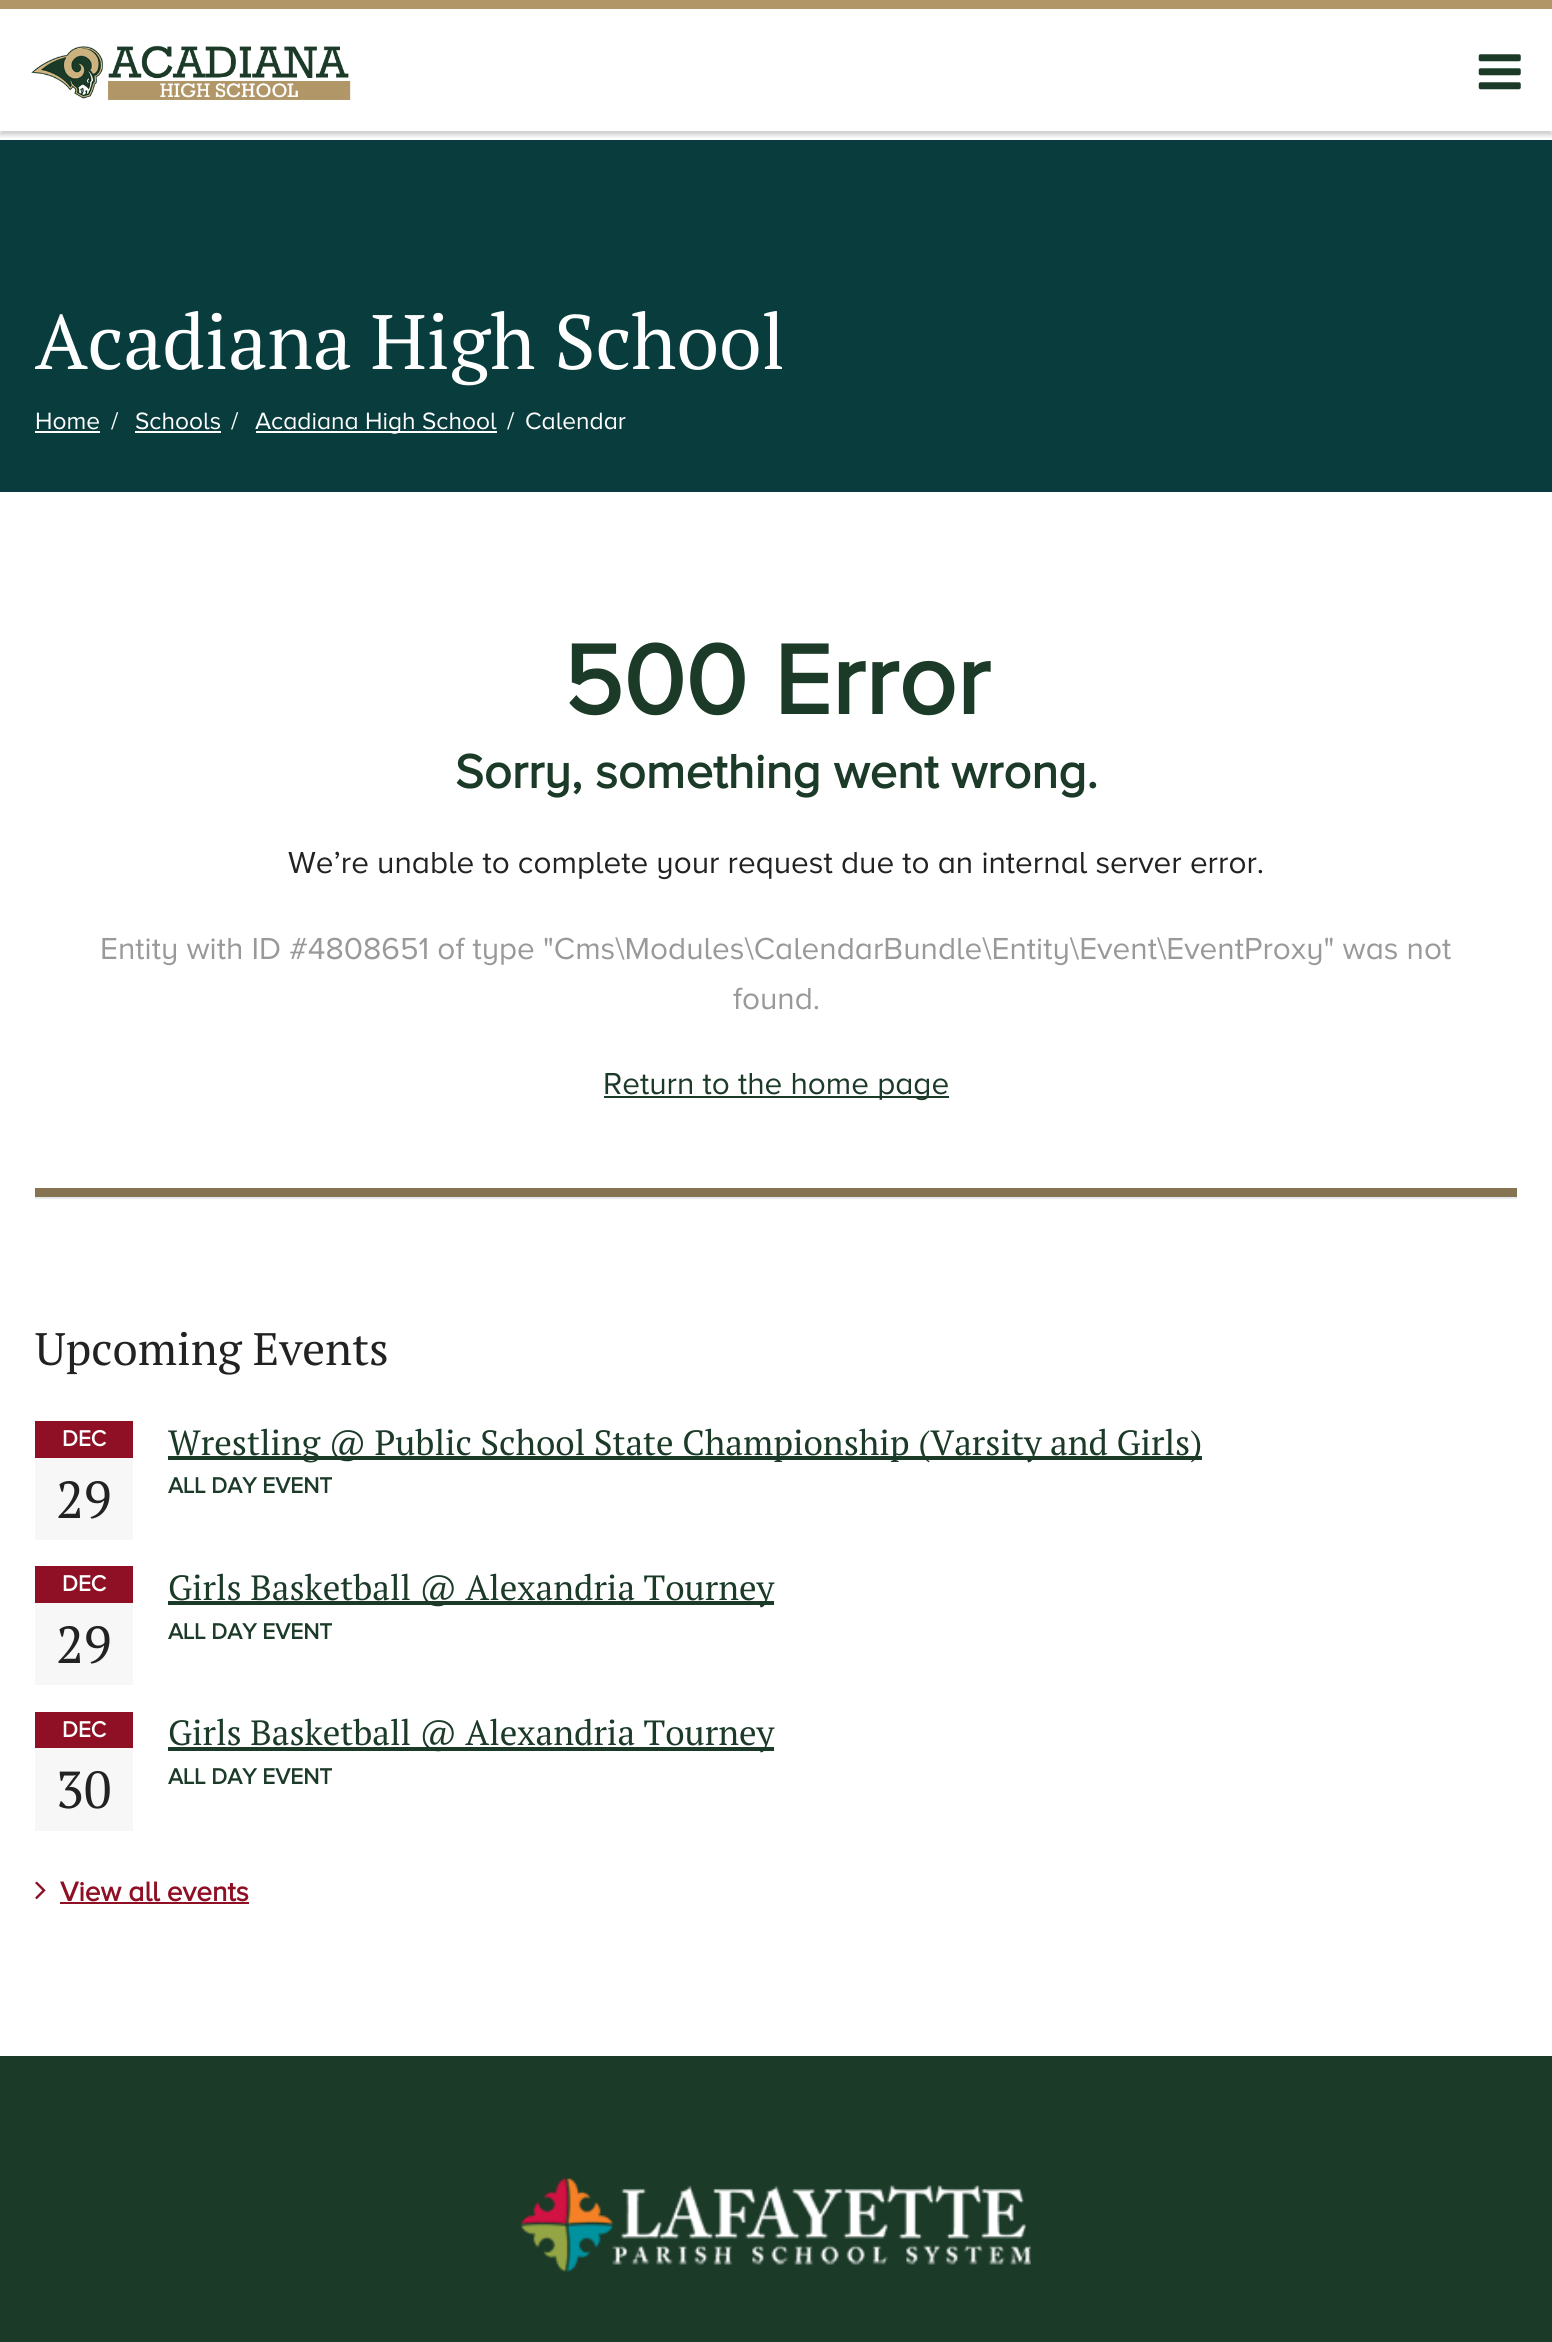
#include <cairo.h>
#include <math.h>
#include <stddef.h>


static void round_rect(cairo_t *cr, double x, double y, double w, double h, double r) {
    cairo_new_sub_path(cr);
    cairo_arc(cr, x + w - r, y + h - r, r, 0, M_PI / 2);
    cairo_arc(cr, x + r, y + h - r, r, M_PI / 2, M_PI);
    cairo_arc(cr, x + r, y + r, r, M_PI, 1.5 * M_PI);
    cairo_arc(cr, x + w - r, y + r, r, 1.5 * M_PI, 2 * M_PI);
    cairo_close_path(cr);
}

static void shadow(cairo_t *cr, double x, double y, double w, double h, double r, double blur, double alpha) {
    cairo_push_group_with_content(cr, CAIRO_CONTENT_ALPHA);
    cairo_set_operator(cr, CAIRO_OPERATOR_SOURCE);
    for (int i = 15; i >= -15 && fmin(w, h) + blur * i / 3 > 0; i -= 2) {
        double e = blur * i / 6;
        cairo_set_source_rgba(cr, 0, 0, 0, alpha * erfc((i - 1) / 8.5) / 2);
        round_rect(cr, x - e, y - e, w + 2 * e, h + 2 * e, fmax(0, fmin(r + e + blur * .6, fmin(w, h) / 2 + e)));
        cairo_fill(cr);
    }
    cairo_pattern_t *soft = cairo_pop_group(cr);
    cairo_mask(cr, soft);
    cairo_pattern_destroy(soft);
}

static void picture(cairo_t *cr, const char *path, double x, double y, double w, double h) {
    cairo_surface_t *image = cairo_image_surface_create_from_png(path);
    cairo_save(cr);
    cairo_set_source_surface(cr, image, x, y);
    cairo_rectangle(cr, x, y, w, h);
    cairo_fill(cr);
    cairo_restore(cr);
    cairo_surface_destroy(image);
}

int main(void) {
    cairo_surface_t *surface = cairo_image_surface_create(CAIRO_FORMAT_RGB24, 1552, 2342);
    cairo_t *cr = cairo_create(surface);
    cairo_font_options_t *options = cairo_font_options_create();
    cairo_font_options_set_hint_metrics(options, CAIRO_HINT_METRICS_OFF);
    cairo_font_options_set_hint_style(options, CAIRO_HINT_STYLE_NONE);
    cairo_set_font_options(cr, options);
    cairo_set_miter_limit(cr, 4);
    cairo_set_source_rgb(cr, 1, 1, 1);
    cairo_paint(cr);
    cairo_set_source_rgb(cr, 0.039, 0.235, 0.239);
    cairo_rectangle(cr, 0, 140, 1552, 352);
    cairo_fill(cr);
    cairo_save(cr);
    cairo_rectangle(cr, 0, 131, 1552, 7);
    cairo_clip(cr);
    cairo_set_source_rgb(cr, 0, 0, 0);
    shadow(cr, 0, 4, 1552, 131, 0, 2.5, 0.2);
    cairo_restore(cr);
    cairo_set_source_rgb(cr, 0.694, 0.592, 0.408);
    cairo_rectangle(cr, 0, 0, 1552, 9);
    cairo_fill(cr);
    picture(cr, "img1.png", 31, 45, 320, 55);
    picture(cr, "img2.png", 1478, 54, 43, 36);
    cairo_select_font_face(cr, "PT Serif", CAIRO_FONT_SLANT_NORMAL, CAIRO_FONT_WEIGHT_NORMAL);
    cairo_set_font_size(cr, 77);
    cairo_set_source_rgb(cr, 1, 1, 1);
    cairo_move_to(cr, 35, 369);
    cairo_show_text(cr, "Acadiana High School");
    cairo_select_font_face(cr, "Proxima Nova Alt", CAIRO_FONT_SLANT_NORMAL, CAIRO_FONT_WEIGHT_NORMAL);
    cairo_set_font_size(cr, 24.5);
    cairo_move_to(cr, 35, 429);
    cairo_show_text(cr, "Home");
    cairo_rectangle(cr, 35, 431, 65, 2);
    cairo_fill(cr);
    cairo_move_to(cr, 111, 429);
    cairo_show_text(cr, "/");
    cairo_move_to(cr, 135, 429);
    cairo_show_text(cr, "Schools");
    cairo_rectangle(cr, 135, 431, 86, 2);
    cairo_fill(cr);
    cairo_move_to(cr, 231, 429);
    cairo_show_text(cr, "/");
    cairo_rectangle(cr, 256, 431, 241, 2);
    cairo_fill(cr);
    cairo_move_to(cr, 255, 429);
    cairo_show_text(cr, "Acadiana High School");
    cairo_move_to(cr, 507, 429);
    cairo_show_text(cr, "/");
    cairo_move_to(cr, 525, 429);
    cairo_show_text(cr, "Calendar");
    cairo_select_font_face(cr, "Proxima Nova Alt", CAIRO_FONT_SLANT_NORMAL, CAIRO_FONT_WEIGHT_BOLD);
    cairo_set_font_size(cr, 101.5);
    cairo_set_source_rgb(cr, 0.106, 0.227, 0.157);
    cairo_move_to(cr, 563, 714);
    cairo_show_text(cr, "500 Error");
    cairo_set_font_size(cr, 49);
    cairo_move_to(cr, 455, 788);
    cairo_show_text(cr, "Sorry, something went wrong.");
    cairo_select_font_face(cr, "Proxima Nova Alt", CAIRO_FONT_SLANT_NORMAL, CAIRO_FONT_WEIGHT_NORMAL);
    cairo_set_font_size(cr, 31.5);
    cairo_set_source_rgb(cr, 0.133, 0.133, 0.133);
    cairo_move_to(cr, 288, 873);
    cairo_show_text(cr, "We’re unable to complete your request due to an internal server error.");
    cairo_set_source_rgb(cr, 0.6, 0.6, 0.6);
    cairo_move_to(cr, 100, 959);
    cairo_show_text(cr, "Entity with ID #4808651 of type \"Cms\\Modules\\CalendarBundle\\Entity\\Event\\EventProxy\" was not");
    cairo_move_to(cr, 733, 1009);
    cairo_show_text(cr, "found.");
    cairo_set_source_rgb(cr, 0.106, 0.227, 0.157);
    cairo_rectangle(cr, 604, 1096, 345, 2);
    cairo_fill(cr);
    cairo_move_to(cr, 603, 1094);
    cairo_show_text(cr, "Return to the home page");
    cairo_set_source_rgb(cr, 0.522, 0.451, 0.322);
    cairo_rectangle(cr, 35, 1188, 1482, 9);
    cairo_fill(cr);
    cairo_set_source_rgb(cr, 0.902, 0.914, 0.929);
    cairo_rectangle(cr, 35, 1197, 1482, 2);
    cairo_fill(cr);
    cairo_select_font_face(cr, "PT Serif", CAIRO_FONT_SLANT_NORMAL, CAIRO_FONT_WEIGHT_NORMAL);
    cairo_set_font_size(cr, 45.5);
    cairo_set_source_rgb(cr, 0.133, 0.133, 0.133);
    cairo_move_to(cr, 35, 1365);
    cairo_show_text(cr, "Upcoming Events");
    cairo_set_source_rgb(cr, 0.561, 0.063, 0.145);
    cairo_rectangle(cr, 35, 1421, 98, 37);
    cairo_fill(cr);
    cairo_select_font_face(cr, "Proxima Nova Alt", CAIRO_FONT_SLANT_NORMAL, CAIRO_FONT_WEIGHT_BOLD);
    cairo_set_font_size(cr, 22.75);
    cairo_set_source_rgb(cr, 1, 1, 1);
    cairo_move_to(cr, 62, 1446);
    cairo_show_text(cr, "DEC");
    cairo_set_source_rgb(cr, 0.965, 0.965, 0.965);
    cairo_rectangle(cr, 35, 1458, 98, 82);
    cairo_fill(cr);
    cairo_select_font_face(cr, "PT Serif", CAIRO_FONT_SLANT_NORMAL, CAIRO_FONT_WEIGHT_NORMAL);
    cairo_set_font_size(cr, 52);
    cairo_set_source_rgb(cr, 0.133, 0.133, 0.133);
    cairo_move_to(cr, 56, 1518);
    cairo_show_text(cr, "29");
    cairo_set_source_rgb(cr, 0.106, 0.227, 0.157);
    cairo_rectangle(cr, 168, 1456, 1034, 4);
    cairo_fill(cr);
    cairo_set_font_size(cr, 35);
    cairo_move_to(cr, 168, 1455);
    cairo_show_text(cr, "Wrestling @ Public School State Championship (Varsity and Girls)");
    cairo_select_font_face(cr, "Proxima Nova Alt", CAIRO_FONT_SLANT_NORMAL, CAIRO_FONT_WEIGHT_BOLD);
    cairo_set_font_size(cr, 22.75);
    cairo_move_to(cr, 168, 1493);
    cairo_show_text(cr, "ALL DAY EVENT");
    cairo_set_source_rgb(cr, 0.561, 0.063, 0.145);
    cairo_rectangle(cr, 35, 1566, 98, 37);
    cairo_fill(cr);
    cairo_set_source_rgb(cr, 1, 1, 1);
    cairo_move_to(cr, 62, 1591);
    cairo_show_text(cr, "DEC");
    cairo_set_source_rgb(cr, 0.965, 0.965, 0.965);
    cairo_rectangle(cr, 35, 1603, 98, 82);
    cairo_fill(cr);
    cairo_select_font_face(cr, "PT Serif", CAIRO_FONT_SLANT_NORMAL, CAIRO_FONT_WEIGHT_NORMAL);
    cairo_set_font_size(cr, 52);
    cairo_set_source_rgb(cr, 0.133, 0.133, 0.133);
    cairo_move_to(cr, 56, 1663);
    cairo_show_text(cr, "29");
    cairo_set_source_rgb(cr, 0.106, 0.227, 0.157);
    cairo_rectangle(cr, 168, 1601, 606, 4);
    cairo_fill(cr);
    cairo_set_font_size(cr, 35);
    cairo_move_to(cr, 168, 1600);
    cairo_show_text(cr, "Girls Basketball @ Alexandria Tourney");
    cairo_select_font_face(cr, "Proxima Nova Alt", CAIRO_FONT_SLANT_NORMAL, CAIRO_FONT_WEIGHT_BOLD);
    cairo_set_font_size(cr, 22.75);
    cairo_move_to(cr, 168, 1639);
    cairo_show_text(cr, "ALL DAY EVENT");
    cairo_set_source_rgb(cr, 0.561, 0.063, 0.145);
    cairo_rectangle(cr, 35, 1712, 98, 36);
    cairo_fill(cr);
    cairo_set_source_rgb(cr, 1, 1, 1);
    cairo_move_to(cr, 62, 1737);
    cairo_show_text(cr, "DEC");
    cairo_set_source_rgb(cr, 0.965, 0.965, 0.965);
    cairo_rectangle(cr, 35, 1748, 98, 83);
    cairo_fill(cr);
    cairo_select_font_face(cr, "PT Serif", CAIRO_FONT_SLANT_NORMAL, CAIRO_FONT_WEIGHT_NORMAL);
    cairo_set_font_size(cr, 52);
    cairo_set_source_rgb(cr, 0.133, 0.133, 0.133);
    cairo_move_to(cr, 56, 1808);
    cairo_show_text(cr, "30");
    cairo_set_source_rgb(cr, 0.106, 0.227, 0.157);
    cairo_rectangle(cr, 168, 1747, 606, 4);
    cairo_fill(cr);
    cairo_set_font_size(cr, 35);
    cairo_move_to(cr, 168, 1745);
    cairo_show_text(cr, "Girls Basketball @ Alexandria Tourney");
    cairo_select_font_face(cr, "Proxima Nova Alt", CAIRO_FONT_SLANT_NORMAL, CAIRO_FONT_WEIGHT_BOLD);
    cairo_set_font_size(cr, 22.75);
    cairo_move_to(cr, 168, 1784);
    cairo_show_text(cr, "ALL DAY EVENT");
    picture(cr, "img3.png", 35, 1881, 11, 19);
    cairo_set_font_size(cr, 28);
    cairo_set_source_rgb(cr, 0.561, 0.063, 0.145);
    cairo_move_to(cr, 60, 1901);
    cairo_show_text(cr, "View all events");
    cairo_rectangle(cr, 60, 1902, 189, 2);
    cairo_fill(cr);
    cairo_set_source_rgb(cr, 0.106, 0.227, 0.157);
    cairo_rectangle(cr, 0, 2056, 1552, 286);
    cairo_fill(cr);
    picture(cr, "img4.png", 521, 2178, 510, 94);
    cairo_surface_write_to_png(surface, "page.png");
    cairo_font_options_destroy(options);
    cairo_destroy(cr);
    cairo_surface_destroy(surface);
    return 0;
}
